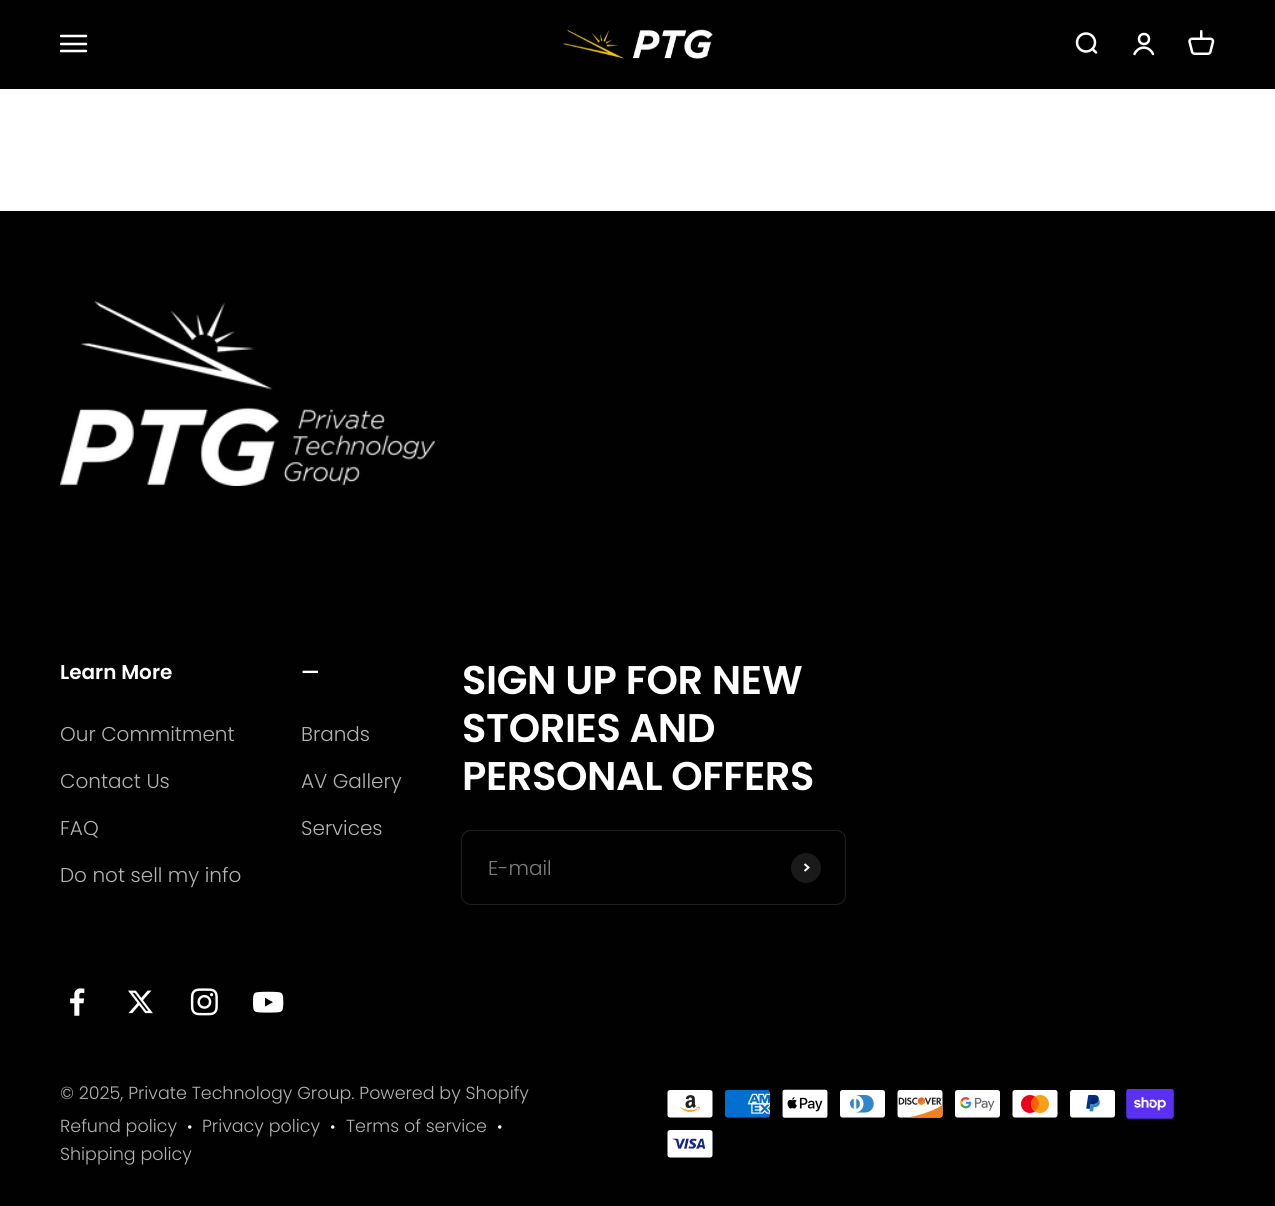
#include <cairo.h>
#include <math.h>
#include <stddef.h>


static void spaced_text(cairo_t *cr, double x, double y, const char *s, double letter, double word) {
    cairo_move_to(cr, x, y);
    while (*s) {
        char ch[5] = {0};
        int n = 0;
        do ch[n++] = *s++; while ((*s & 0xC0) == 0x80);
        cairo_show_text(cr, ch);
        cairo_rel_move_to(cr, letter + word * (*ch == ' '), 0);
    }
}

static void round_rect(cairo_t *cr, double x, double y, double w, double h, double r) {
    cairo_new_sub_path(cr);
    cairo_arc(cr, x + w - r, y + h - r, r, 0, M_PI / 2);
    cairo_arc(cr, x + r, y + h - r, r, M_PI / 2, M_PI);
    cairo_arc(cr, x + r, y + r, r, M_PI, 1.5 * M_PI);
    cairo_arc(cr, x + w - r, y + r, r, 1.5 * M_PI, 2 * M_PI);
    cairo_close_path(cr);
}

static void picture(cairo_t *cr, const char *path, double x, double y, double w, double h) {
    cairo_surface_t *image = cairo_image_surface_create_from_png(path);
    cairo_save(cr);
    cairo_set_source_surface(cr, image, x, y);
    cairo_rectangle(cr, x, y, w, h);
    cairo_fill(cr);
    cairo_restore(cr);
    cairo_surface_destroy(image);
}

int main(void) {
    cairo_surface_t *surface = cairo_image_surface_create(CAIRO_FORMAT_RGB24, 1275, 1206);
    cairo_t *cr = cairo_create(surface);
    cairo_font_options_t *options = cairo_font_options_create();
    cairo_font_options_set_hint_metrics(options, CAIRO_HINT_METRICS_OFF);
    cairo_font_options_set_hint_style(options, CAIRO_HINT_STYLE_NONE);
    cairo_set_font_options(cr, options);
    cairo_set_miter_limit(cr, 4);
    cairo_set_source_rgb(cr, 1, 1, 1);
    cairo_paint(cr);
    cairo_set_source_rgb(cr, 0, 0.004, 0);
    cairo_rectangle(cr, 0, 0, 1275, 89);
    cairo_fill(cr);
    cairo_save(cr);
    cairo_rectangle(cr, 60, 30, 28, 28);
    cairo_clip(cr);
    cairo_new_path(cr);
    cairo_move_to(cr, 61, 36);
    cairo_line_to(cr, 86, 36);
    cairo_move_to(cr, 61, 44);
    cairo_line_to(cr, 86, 44);
    cairo_move_to(cr, 61, 51);
    cairo_line_to(cr, 86, 51);
    cairo_set_source_rgb(cr, 1, 1, 1);
    cairo_set_line_width(cr, 2.5);
    cairo_set_line_cap(cr, CAIRO_LINE_CAP_ROUND);
    cairo_stroke(cr);
    cairo_restore(cr);
    picture(cr, "img1.png", 562, 29, 151, 30);
    cairo_arc(cr, 1086, 42.5, 9, 0, 2 * M_PI);
    cairo_set_source_rgb(cr, 1, 1, 1);
    cairo_set_line_width(cr, 2.5);
    cairo_stroke(cr);
    cairo_new_path(cr);
    cairo_move_to(cr, 1092.5, 49);
    cairo_line_to(cr, 1096, 52.5);
    cairo_set_line_cap(cr, CAIRO_LINE_CAP_ROUND);
    cairo_set_line_join(cr, CAIRO_LINE_JOIN_ROUND);
    cairo_stroke(cr);
    cairo_arc(cr, 1144, 39, 5, 0, 2 * M_PI);
    cairo_set_line_cap(cr, CAIRO_LINE_CAP_BUTT);
    cairo_set_line_join(cr, CAIRO_LINE_JOIN_MITER);
    cairo_stroke(cr);
    cairo_new_path(cr);
    cairo_move_to(cr, 1134.5, 54);
    cairo_curve_to(cr, 1138.5, 45.5, 1149, 45.5, 1153, 54);
    cairo_set_line_cap(cr, CAIRO_LINE_CAP_ROUND);
    cairo_stroke(cr);
    picture(cr, "img2.png", 1188, 30, 27, 25);
    cairo_set_source_rgb(cr, 0, 0.004, 0);
    cairo_rectangle(cr, 0, 211, 1275, 995);
    cairo_fill(cr);
    picture(cr, "img3.png", 60, 301, 375, 185);
    cairo_select_font_face(cr, "Poppins SemiBold", CAIRO_FONT_SLANT_NORMAL, CAIRO_FONT_WEIGHT_NORMAL);
    cairo_set_font_size(cr, 20);
    cairo_set_source_rgb(cr, 1, 1, 1);
    cairo_move_to(cr, 60, 679);
    cairo_show_text(cr, "Learn More");
    cairo_select_font_face(cr, "Poppins Light", CAIRO_FONT_SLANT_NORMAL, CAIRO_FONT_WEIGHT_NORMAL);
    cairo_set_source_rgb(cr, 0.702, 0.702, 0.702);
    cairo_move_to(cr, 60, 741);
    cairo_show_text(cr, "Our Commitment");
    cairo_move_to(cr, 60, 788);
    cairo_show_text(cr, "Contact Us");
    cairo_move_to(cr, 60, 835);
    cairo_show_text(cr, "FAQ");
    cairo_move_to(cr, 60, 882);
    cairo_show_text(cr, "Do not sell my info");
    cairo_select_font_face(cr, "Poppins SemiBold", CAIRO_FONT_SLANT_NORMAL, CAIRO_FONT_WEIGHT_NORMAL);
    cairo_set_source_rgb(cr, 1, 1, 1);
    cairo_move_to(cr, 301, 679);
    cairo_show_text(cr, "—");
    cairo_select_font_face(cr, "Poppins Light", CAIRO_FONT_SLANT_NORMAL, CAIRO_FONT_WEIGHT_NORMAL);
    cairo_set_source_rgb(cr, 0.702, 0.702, 0.702);
    cairo_move_to(cr, 301, 741);
    cairo_show_text(cr, "Brands");
    cairo_move_to(cr, 301, 788);
    cairo_show_text(cr, "AV Gallery");
    cairo_move_to(cr, 301, 835);
    cairo_show_text(cr, "Services");
    cairo_select_font_face(cr, "Poppins SemiBold", CAIRO_FONT_SLANT_NORMAL, CAIRO_FONT_WEIGHT_NORMAL);
    cairo_set_font_size(cr, 40);
    cairo_set_source_rgb(cr, 1, 1, 1);
    spaced_text(cr, 462, 694, "SIGN UP FOR NEW", -0.4, 0);
    spaced_text(cr, 462, 742, "STORIES AND", -0.4, 0);
    spaced_text(cr, 462, 790, "PERSONAL OFFERS", -0.4, 0);
    round_rect(cr, 461.5, 830.5, 384, 74, 9.5);
    cairo_set_source_rgb(cr, 0.122, 0.122, 0.122);
    cairo_set_line_width(cr, 1);
    cairo_set_line_cap(cr, CAIRO_LINE_CAP_BUTT);
    cairo_stroke(cr);
    cairo_select_font_face(cr, "Poppins Light", CAIRO_FONT_SLANT_NORMAL, CAIRO_FONT_WEIGHT_NORMAL);
    cairo_set_font_size(cr, 20);
    cairo_set_source_rgb(cr, 0.502, 0.502, 0.502);
    cairo_move_to(cr, 488, 875);
    cairo_show_text(cr, "E-mail");
    cairo_set_source_rgb(cr, 0.102, 0.102, 0.102);
    cairo_new_path(cr);
    cairo_arc(cr, 806, 868, 15, 0, 2 * M_PI);
    cairo_fill(cr);
    cairo_new_path(cr);
    cairo_move_to(cr, 804.5, 871);
    cairo_line_to(cr, 808.5, 867.5);
    cairo_line_to(cr, 804.5, 864);
    cairo_set_source_rgb(cr, 1, 1, 1);
    cairo_set_line_width(cr, 1.9);
    cairo_stroke(cr);
    picture(cr, "img4.png", 70, 988, 15, 28);
    picture(cr, "img5.png", 128, 990, 25, 24);
    picture(cr, "img6.png", 190, 988, 28, 28);
    picture(cr, "img7.png", 252, 991, 32, 22);
    cairo_set_font_size(cr, 17.5);
    cairo_set_source_rgb(cr, 0.702, 0.702, 0.702);
    cairo_move_to(cr, 60, 1099);
    cairo_show_text(cr, "© 2025, Private Technology Group. Powered by Shopify");
    cairo_move_to(cr, 60, 1132);
    cairo_show_text(cr, "Refund policy");
    cairo_set_font_size(cr, 15);
    cairo_set_source_rgb(cr, 1, 1, 1);
    cairo_move_to(cr, 187, 1132);
    cairo_show_text(cr, "•");
    cairo_set_font_size(cr, 17.5);
    cairo_set_source_rgb(cr, 0.702, 0.702, 0.702);
    cairo_move_to(cr, 202, 1132);
    cairo_show_text(cr, "Privacy policy");
    cairo_set_font_size(cr, 15);
    cairo_set_source_rgb(cr, 1, 1, 1);
    cairo_move_to(cr, 330, 1132);
    cairo_show_text(cr, "•");
    cairo_set_font_size(cr, 17.5);
    cairo_set_source_rgb(cr, 0.702, 0.702, 0.702);
    cairo_move_to(cr, 346, 1132);
    cairo_show_text(cr, "Terms of service");
    cairo_set_font_size(cr, 15);
    cairo_set_source_rgb(cr, 1, 1, 1);
    cairo_move_to(cr, 497, 1132);
    cairo_show_text(cr, "•");
    cairo_set_font_size(cr, 17.5);
    cairo_set_source_rgb(cr, 0.702, 0.702, 0.702);
    cairo_move_to(cr, 60, 1160);
    cairo_show_text(cr, "Shipping policy");
    picture(cr, "img8.png", 667, 1090, 46, 28);
    picture(cr, "img9.png", 725, 1090, 45, 28);
    picture(cr, "img10.png", 782, 1089, 46, 29);
    picture(cr, "img11.png", 840, 1090, 45, 28);
    picture(cr, "img12.png", 897, 1090, 46, 28);
    picture(cr, "img13.png", 955, 1090, 45, 28);
    picture(cr, "img14.png", 1012, 1090, 46, 28);
    picture(cr, "img15.png", 1070, 1090, 45, 28);
    picture(cr, "img16.png", 1126, 1089, 48, 30);
    picture(cr, "img17.png", 667, 1130, 46, 28);
    cairo_surface_write_to_png(surface, "page.png");
    cairo_font_options_destroy(options);
    cairo_destroy(cr);
    cairo_surface_destroy(surface);
    return 0;
}
